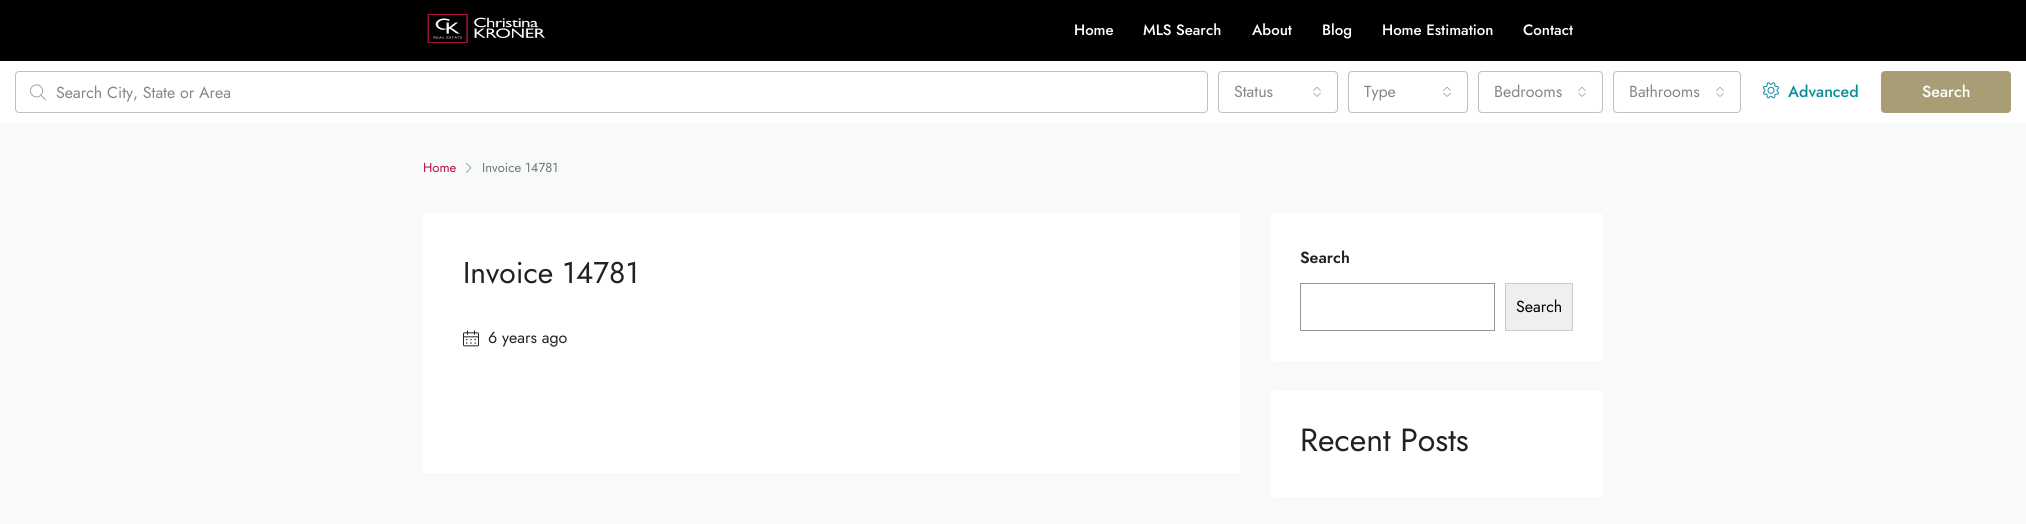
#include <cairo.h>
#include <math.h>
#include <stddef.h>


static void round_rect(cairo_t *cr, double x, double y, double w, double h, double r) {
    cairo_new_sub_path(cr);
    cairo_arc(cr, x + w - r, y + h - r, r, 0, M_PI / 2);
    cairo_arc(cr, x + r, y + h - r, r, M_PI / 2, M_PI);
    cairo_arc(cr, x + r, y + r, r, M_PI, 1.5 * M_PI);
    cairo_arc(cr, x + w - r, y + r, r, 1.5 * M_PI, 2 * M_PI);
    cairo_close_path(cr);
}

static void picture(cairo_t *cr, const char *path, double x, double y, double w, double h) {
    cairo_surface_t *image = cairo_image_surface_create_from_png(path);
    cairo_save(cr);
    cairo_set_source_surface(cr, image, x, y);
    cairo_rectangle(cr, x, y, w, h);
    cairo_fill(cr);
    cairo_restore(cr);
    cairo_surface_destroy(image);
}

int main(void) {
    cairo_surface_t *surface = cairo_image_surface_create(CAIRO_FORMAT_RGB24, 2026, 524);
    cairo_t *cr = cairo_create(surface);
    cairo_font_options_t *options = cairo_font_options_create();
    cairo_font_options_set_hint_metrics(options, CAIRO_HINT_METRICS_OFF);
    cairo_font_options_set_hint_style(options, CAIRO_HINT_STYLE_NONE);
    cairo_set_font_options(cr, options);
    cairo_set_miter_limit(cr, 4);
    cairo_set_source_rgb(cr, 0.969, 0.973, 0.976);
    cairo_paint(cr);
    cairo_set_source_rgb(cr, 0, 0, 0);
    cairo_rectangle(cr, 0, 0, 2026, 61);
    cairo_fill(cr);
    picture(cr, "img1.png", 427, 13, 119, 31);
    cairo_select_font_face(cr, "Jost Medium", CAIRO_FONT_SLANT_NORMAL, CAIRO_FONT_WEIGHT_NORMAL);
    cairo_set_font_size(cr, 15);
    cairo_set_source_rgb(cr, 1, 1, 1);
    cairo_move_to(cr, 1074, 35);
    cairo_show_text(cr, "Home");
    cairo_move_to(cr, 1143, 35);
    cairo_show_text(cr, "MLS Search");
    cairo_move_to(cr, 1252, 35);
    cairo_show_text(cr, "About");
    cairo_move_to(cr, 1322, 35);
    cairo_show_text(cr, "Blog");
    cairo_move_to(cr, 1382, 35);
    cairo_show_text(cr, "Home Estimation");
    cairo_move_to(cr, 1523, 35);
    cairo_show_text(cr, "Contact");
    cairo_rectangle(cr, 0, 61, 2026, 62);
    cairo_fill(cr);
    round_rect(cr, 15.5, 71.5, 1192, 41, 3.5);
    cairo_set_source_rgb(cr, 0.741, 0.757, 0.757);
    cairo_set_line_width(cr, 1);
    cairo_stroke(cr);
    picture(cr, "img2.png", 30, 84, 16, 17);
    cairo_select_font_face(cr, "Jost", CAIRO_FONT_SLANT_NORMAL, CAIRO_FONT_WEIGHT_NORMAL);
    cairo_set_font_size(cr, 16);
    cairo_set_source_rgb(cr, 0.51, 0.529, 0.537);
    cairo_move_to(cr, 56, 98);
    cairo_show_text(cr, "Search City, State or Area");
    round_rect(cr, 1218.5, 71.5, 119, 41, 3.5);
    cairo_set_source_rgb(cr, 0.741, 0.757, 0.757);
    cairo_stroke(cr);
    cairo_set_source_rgb(cr, 0.51, 0.529, 0.537);
    cairo_move_to(cr, 1234, 97);
    cairo_show_text(cr, "Status");
    picture(cr, "img3.png", 1313, 87, 8, 10);
    round_rect(cr, 1348.5, 71.5, 119, 41, 3.5);
    cairo_set_source_rgb(cr, 0.741, 0.757, 0.757);
    cairo_stroke(cr);
    cairo_set_source_rgb(cr, 0.51, 0.529, 0.537);
    cairo_move_to(cr, 1364, 97);
    cairo_show_text(cr, "Type");
    picture(cr, "img3.png", 1443, 87, 8, 10);
    round_rect(cr, 1478.5, 71.5, 124, 41, 3.5);
    cairo_set_source_rgb(cr, 0.741, 0.757, 0.757);
    cairo_stroke(cr);
    cairo_set_source_rgb(cr, 0.51, 0.529, 0.537);
    cairo_move_to(cr, 1494, 97);
    cairo_show_text(cr, "Bedrooms");
    picture(cr, "img3.png", 1578, 87, 8, 10);
    round_rect(cr, 1613.5, 71.5, 127, 41, 3.5);
    cairo_set_source_rgb(cr, 0.741, 0.757, 0.757);
    cairo_stroke(cr);
    cairo_set_source_rgb(cr, 0.51, 0.529, 0.537);
    cairo_move_to(cr, 1629, 97);
    cairo_show_text(cr, "Bathrooms");
    picture(cr, "img3.png", 1716, 87, 8, 10);
    picture(cr, "img4.png", 1763, 82, 16, 17);
    cairo_select_font_face(cr, "Jost Medium", CAIRO_FONT_SLANT_NORMAL, CAIRO_FONT_WEIGHT_NORMAL);
    cairo_set_source_rgb(cr, 0.031, 0.549, 0.596);
    cairo_move_to(cr, 1788, 97);
    cairo_show_text(cr, "Advanced");
    cairo_set_source_rgb(cr, 0.659, 0.616, 0.455);
    round_rect(cr, 1881.5, 71.5, 129, 41, 3.5);
    cairo_fill_preserve(cr);
    cairo_stroke(cr);
    cairo_set_source_rgb(cr, 1, 1, 1);
    cairo_move_to(cr, 1922, 97);
    cairo_show_text(cr, "Search");
    cairo_select_font_face(cr, "Jost", CAIRO_FONT_SLANT_NORMAL, CAIRO_FONT_WEIGHT_NORMAL);
    cairo_set_font_size(cr, 13);
    cairo_set_source_rgb(cr, 0.725, 0.047, 0.298);
    cairo_move_to(cr, 423, 172);
    cairo_show_text(cr, "Home");
    picture(cr, "img5.png", 466, 162, 6, 11);
    cairo_set_source_rgb(cr, 0.424, 0.459, 0.49);
    cairo_move_to(cr, 482, 172);
    cairo_show_text(cr, "Invoice 14781");
    cairo_set_source_rgb(cr, 1, 1, 1);
    cairo_rectangle(cr, 423, 213, 817, 260);
    cairo_fill(cr);
    cairo_set_font_size(cr, 30);
    cairo_set_source_rgb(cr, 0.133, 0.133, 0.133);
    cairo_move_to(cr, 463, 283);
    cairo_show_text(cr, "Invoice 14781");
    picture(cr, "img6.png", 463, 330, 16, 17);
    cairo_set_font_size(cr, 16);
    cairo_move_to(cr, 488, 343);
    cairo_show_text(cr, "6 years ago");
    cairo_set_source_rgb(cr, 1, 1, 1);
    round_rect(cr, 1270, 213, 333, 148, 4);
    cairo_fill(cr);
    cairo_select_font_face(cr, "Jost SemiBold", CAIRO_FONT_SLANT_NORMAL, CAIRO_FONT_WEIGHT_NORMAL);
    cairo_set_source_rgb(cr, 0.133, 0.133, 0.133);
    cairo_move_to(cr, 1300, 263);
    cairo_show_text(cr, "Search");
    cairo_rectangle(cr, 1300.5, 283.5, 194, 47);
    cairo_set_source_rgb(cr, 0.58, 0.58, 0.58);
    cairo_stroke(cr);
    cairo_set_source_rgb(cr, 0.937, 0.937, 0.937);
    cairo_rectangle(cr, 1505.5, 283.5, 67, 47);
    cairo_fill_preserve(cr);
    cairo_set_source_rgb(cr, 0.8, 0.8, 0.8);
    cairo_stroke(cr);
    cairo_select_font_face(cr, "Jost", CAIRO_FONT_SLANT_NORMAL, CAIRO_FONT_WEIGHT_NORMAL);
    cairo_set_source_rgb(cr, 0, 0, 0);
    cairo_move_to(cr, 1516, 312);
    cairo_show_text(cr, "Search");
    cairo_set_source_rgb(cr, 1, 1, 1);
    round_rect(cr, 1270, 391, 333, 106, 4);
    cairo_fill(cr);
    cairo_set_font_size(cr, 32);
    cairo_set_source_rgb(cr, 0.133, 0.133, 0.133);
    cairo_move_to(cr, 1300, 451);
    cairo_show_text(cr, "Recent Posts");
    cairo_surface_write_to_png(surface, "page.png");
    cairo_font_options_destroy(options);
    cairo_destroy(cr);
    cairo_surface_destroy(surface);
    return 0;
}
